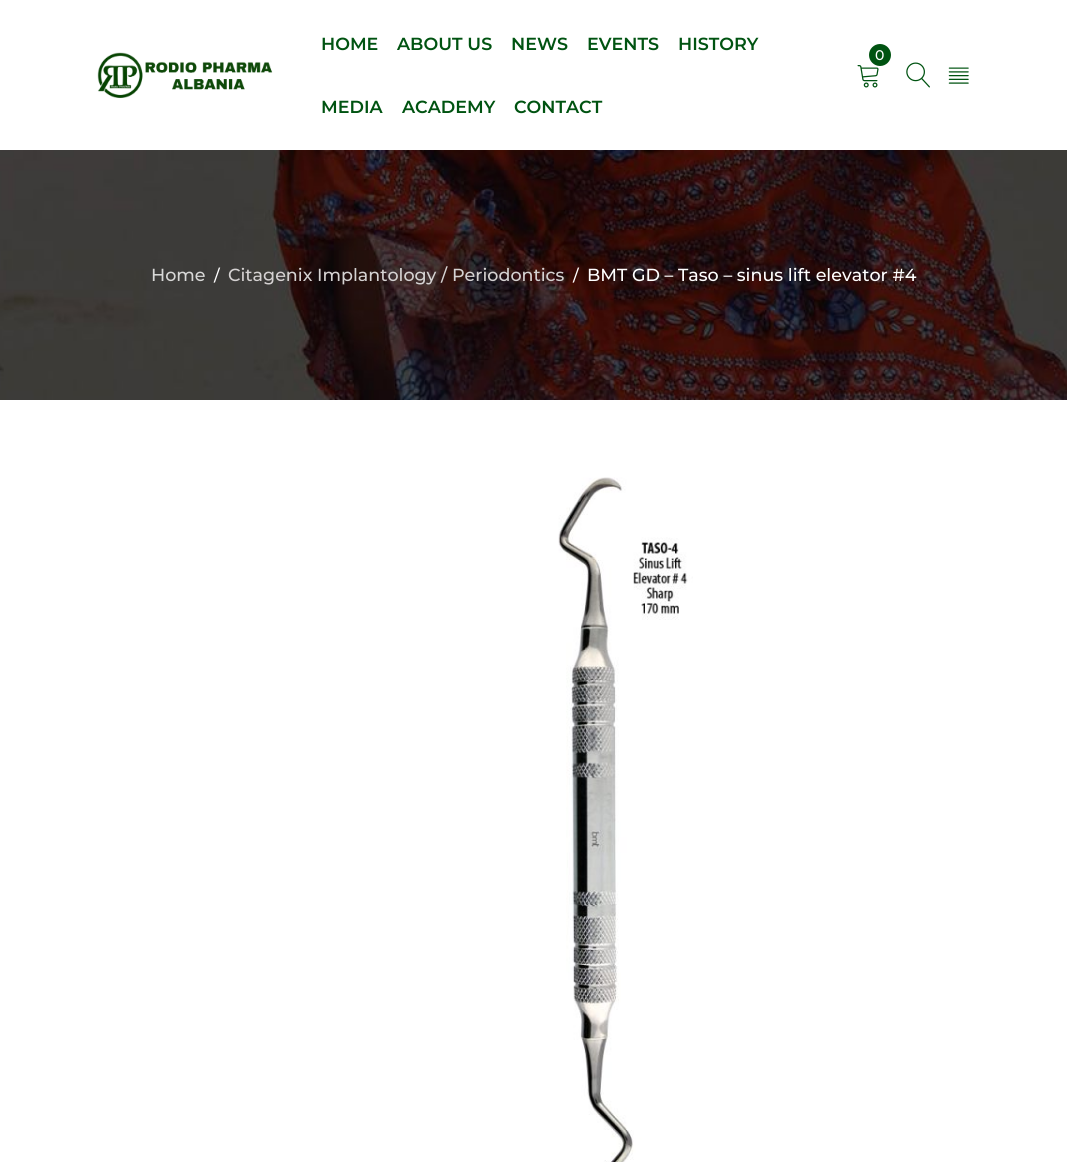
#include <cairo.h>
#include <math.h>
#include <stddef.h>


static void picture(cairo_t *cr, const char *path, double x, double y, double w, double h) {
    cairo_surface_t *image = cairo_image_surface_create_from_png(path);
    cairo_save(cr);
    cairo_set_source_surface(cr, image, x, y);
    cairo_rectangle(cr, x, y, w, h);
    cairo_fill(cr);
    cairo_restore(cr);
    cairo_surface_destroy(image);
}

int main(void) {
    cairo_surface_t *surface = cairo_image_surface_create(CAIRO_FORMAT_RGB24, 1067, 1162);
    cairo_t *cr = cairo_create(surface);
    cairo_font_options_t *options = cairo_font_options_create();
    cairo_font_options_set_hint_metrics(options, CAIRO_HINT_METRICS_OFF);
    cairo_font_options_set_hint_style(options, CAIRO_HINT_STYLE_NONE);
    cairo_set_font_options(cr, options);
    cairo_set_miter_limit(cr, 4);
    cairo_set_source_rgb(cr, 1, 1, 1);
    cairo_paint(cr);
    picture(cr, "img1.png", 97, 52, 176, 47);
    cairo_select_font_face(cr, "Montserrat SemiBold", CAIRO_FONT_SLANT_NORMAL, CAIRO_FONT_WEIGHT_NORMAL);
    cairo_set_font_size(cr, 17.5);
    cairo_set_source_rgb(cr, 0, 0.325, 0.067);
    cairo_move_to(cr, 321, 50);
    cairo_show_text(cr, "HOME");
    cairo_move_to(cr, 397, 50);
    cairo_show_text(cr, "ABOUT US");
    cairo_move_to(cr, 511, 50);
    cairo_show_text(cr, "NEWS");
    cairo_move_to(cr, 587, 50);
    cairo_show_text(cr, "EVENTS");
    cairo_move_to(cr, 678, 50);
    cairo_show_text(cr, "HISTORY");
    cairo_move_to(cr, 321, 113);
    cairo_show_text(cr, "MEDIA");
    cairo_move_to(cr, 402, 113);
    cairo_show_text(cr, "ACADEMY");
    cairo_move_to(cr, 514, 113);
    cairo_show_text(cr, "CONTACT");
    picture(cr, "img2.png", 857, 65, 22, 23);
    cairo_arc(cr, 880, 55, 11, 0, 2 * M_PI);
    cairo_fill(cr);
    cairo_select_font_face(cr, "Montserrat Medium", CAIRO_FONT_SLANT_NORMAL, CAIRO_FONT_WEIGHT_NORMAL);
    cairo_set_font_size(cr, 14);
    cairo_set_source_rgb(cr, 1, 1, 1);
    cairo_move_to(cr, 875, 60);
    cairo_show_text(cr, "0");
    picture(cr, "img3.png", 906, 62, 24, 26);
    picture(cr, "img4.png", 948, 67, 21, 17);
    picture(cr, "img5.png", 0, 150, 1067, 250);
    cairo_set_font_size(cr, 17.5);
    cairo_set_source_rgb(cr, 0.847, 0.847, 0.843);
    cairo_move_to(cr, 151, 281);
    cairo_show_text(cr, "Home");
    cairo_set_font_size(cr, 16);
    cairo_set_source_rgb(cr, 1, 1, 1);
    cairo_move_to(cr, 214, 281);
    cairo_show_text(cr, "/");
    cairo_set_font_size(cr, 17.5);
    cairo_set_source_rgb(cr, 0.835, 0.824, 0.824);
    cairo_move_to(cr, 228, 281);
    cairo_show_text(cr, "Citagenix Implantology / Periodontics");
    cairo_set_font_size(cr, 16);
    cairo_set_source_rgb(cr, 1, 1, 1);
    cairo_move_to(cr, 573, 281);
    cairo_show_text(cr, "/");
    cairo_set_font_size(cr, 17.5);
    cairo_move_to(cr, 587, 281);
    cairo_show_text(cr, "BMT GD – Taso – sinus lift elevator #4");
    picture(cr, "img6.png", 558, 477, 135, 685);
    cairo_surface_write_to_png(surface, "page.png");
    cairo_font_options_destroy(options);
    cairo_destroy(cr);
    cairo_surface_destroy(surface);
    return 0;
}
